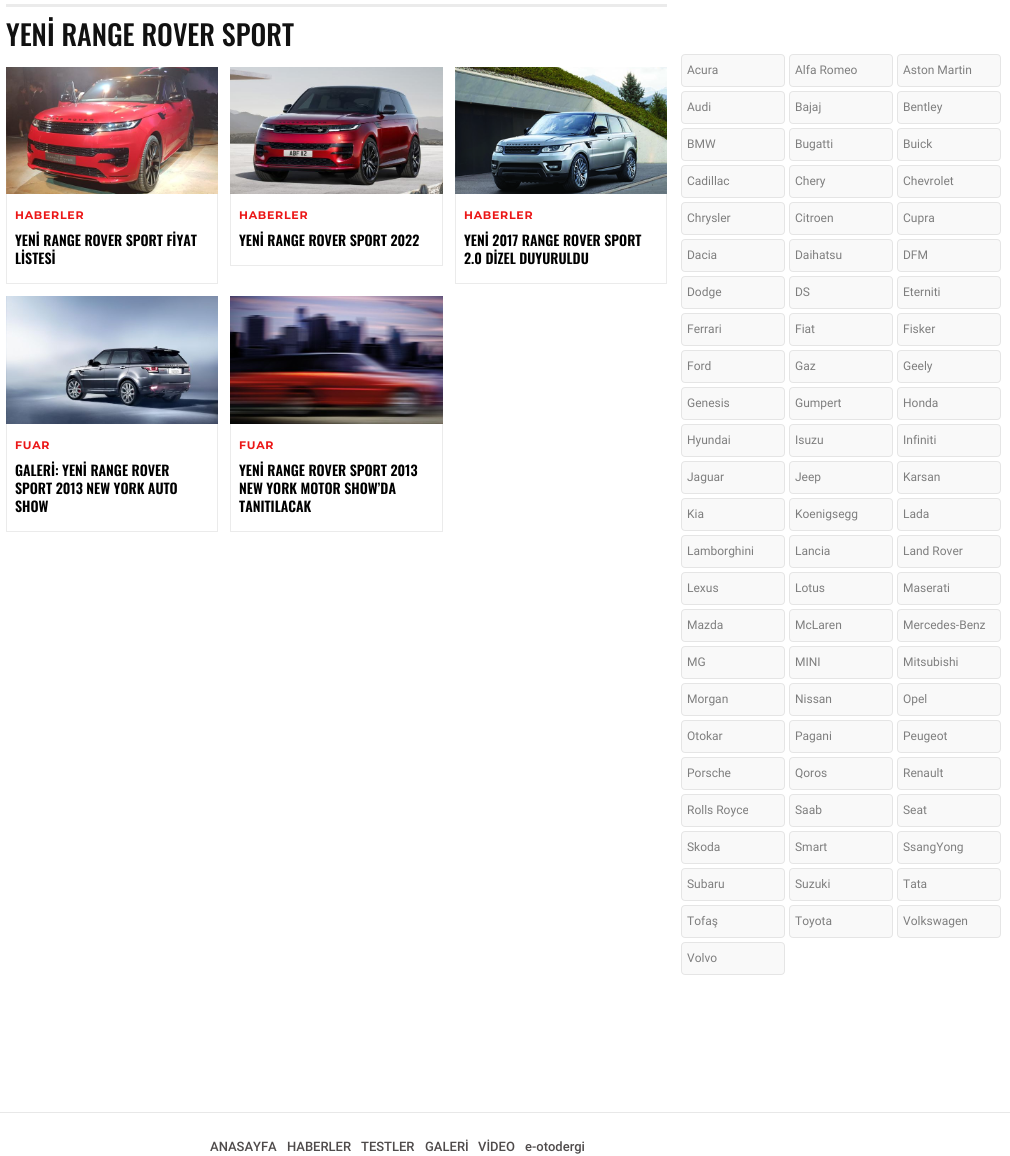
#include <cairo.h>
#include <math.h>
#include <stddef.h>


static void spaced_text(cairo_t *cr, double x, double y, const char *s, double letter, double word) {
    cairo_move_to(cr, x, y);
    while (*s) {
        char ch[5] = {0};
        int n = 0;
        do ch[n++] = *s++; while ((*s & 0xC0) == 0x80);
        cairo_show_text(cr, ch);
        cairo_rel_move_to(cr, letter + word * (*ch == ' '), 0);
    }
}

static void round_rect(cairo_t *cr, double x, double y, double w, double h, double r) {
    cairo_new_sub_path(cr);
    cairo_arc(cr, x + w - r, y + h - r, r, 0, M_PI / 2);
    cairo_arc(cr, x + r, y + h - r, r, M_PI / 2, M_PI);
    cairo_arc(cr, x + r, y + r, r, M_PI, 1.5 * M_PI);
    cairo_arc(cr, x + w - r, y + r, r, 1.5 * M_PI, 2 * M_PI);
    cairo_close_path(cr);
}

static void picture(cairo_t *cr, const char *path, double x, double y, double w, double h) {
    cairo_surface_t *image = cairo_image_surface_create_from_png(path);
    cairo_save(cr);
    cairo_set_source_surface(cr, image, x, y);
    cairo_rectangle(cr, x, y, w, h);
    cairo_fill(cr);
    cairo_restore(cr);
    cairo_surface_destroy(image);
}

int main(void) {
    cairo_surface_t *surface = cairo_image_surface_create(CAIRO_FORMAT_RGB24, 1010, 1156);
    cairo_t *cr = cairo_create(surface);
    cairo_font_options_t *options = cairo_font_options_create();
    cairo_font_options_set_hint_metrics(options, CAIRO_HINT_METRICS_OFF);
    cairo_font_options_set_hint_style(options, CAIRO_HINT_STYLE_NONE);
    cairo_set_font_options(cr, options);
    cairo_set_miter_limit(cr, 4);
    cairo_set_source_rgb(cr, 1, 1, 1);
    cairo_paint(cr);
    cairo_set_source_rgb(cr, 0.918, 0.918, 0.918);
    cairo_rectangle(cr, 6, 4, 661, 3);
    cairo_fill(cr);
    cairo_select_font_face(cr, "Oswald Medium", CAIRO_FONT_SLANT_NORMAL, CAIRO_FONT_WEIGHT_NORMAL);
    cairo_set_font_size(cr, 28);
    cairo_set_source_rgb(cr, 0.067, 0.067, 0.067);
    cairo_move_to(cr, 6, 46);
    cairo_show_text(cr, "YENİ RANGE ROVER SPORT");
    picture(cr, "img1.png", 6, 67, 212, 127);
    cairo_set_source_rgb(cr, 0.918, 0.918, 0.918);
    cairo_rectangle(cr, 217, 194, 1, 90);
    cairo_fill(cr);
    cairo_rectangle(cr, 6, 283, 212, 1);
    cairo_fill(cr);
    cairo_rectangle(cr, 6, 194, 1, 90);
    cairo_fill(cr);
    cairo_select_font_face(cr, "Montserrat", CAIRO_FONT_SLANT_NORMAL, CAIRO_FONT_WEIGHT_BOLD);
    cairo_set_font_size(cr, 11);
    cairo_set_source_rgb(cr, 0.918, 0.09, 0.09);
    spaced_text(cr, 15, 219, "HABERLER", 0.75, 0);
    cairo_select_font_face(cr, "Oswald SemiBold", CAIRO_FONT_SLANT_NORMAL, CAIRO_FONT_WEIGHT_NORMAL);
    cairo_set_font_size(cr, 14);
    cairo_set_source_rgb(cr, 0, 0, 0);
    cairo_move_to(cr, 15, 246);
    cairo_show_text(cr, "YENİ RANGE ROVER SPORT FİYAT");
    cairo_move_to(cr, 15, 264);
    cairo_show_text(cr, "LİSTESİ");
    picture(cr, "img2.png", 230, 67, 213, 127);
    cairo_set_source_rgb(cr, 0.918, 0.918, 0.918);
    cairo_rectangle(cr, 442, 194, 1, 72);
    cairo_fill(cr);
    cairo_rectangle(cr, 230, 265, 213, 1);
    cairo_fill(cr);
    cairo_rectangle(cr, 230, 194, 1, 72);
    cairo_fill(cr);
    cairo_select_font_face(cr, "Montserrat", CAIRO_FONT_SLANT_NORMAL, CAIRO_FONT_WEIGHT_BOLD);
    cairo_set_font_size(cr, 11);
    cairo_set_source_rgb(cr, 0.918, 0.09, 0.09);
    spaced_text(cr, 239, 219, "HABERLER", 0.75, 0);
    cairo_select_font_face(cr, "Oswald SemiBold", CAIRO_FONT_SLANT_NORMAL, CAIRO_FONT_WEIGHT_NORMAL);
    cairo_set_font_size(cr, 14);
    cairo_set_source_rgb(cr, 0, 0, 0);
    cairo_move_to(cr, 239, 246);
    cairo_show_text(cr, "YENİ RANGE ROVER SPORT 2022");
    picture(cr, "img3.png", 455, 67, 212, 127);
    cairo_set_source_rgb(cr, 0.918, 0.918, 0.918);
    cairo_rectangle(cr, 666, 194, 1, 90);
    cairo_fill(cr);
    cairo_rectangle(cr, 455, 283, 212, 1);
    cairo_fill(cr);
    cairo_rectangle(cr, 455, 194, 1, 90);
    cairo_fill(cr);
    cairo_select_font_face(cr, "Montserrat", CAIRO_FONT_SLANT_NORMAL, CAIRO_FONT_WEIGHT_BOLD);
    cairo_set_font_size(cr, 11);
    cairo_set_source_rgb(cr, 0.918, 0.09, 0.09);
    spaced_text(cr, 464, 219, "HABERLER", 0.75, 0);
    cairo_select_font_face(cr, "Oswald SemiBold", CAIRO_FONT_SLANT_NORMAL, CAIRO_FONT_WEIGHT_NORMAL);
    cairo_set_font_size(cr, 14);
    cairo_set_source_rgb(cr, 0, 0, 0);
    cairo_move_to(cr, 464, 246);
    cairo_show_text(cr, "YENİ 2017 RANGE ROVER SPORT");
    cairo_move_to(cr, 464, 264);
    cairo_show_text(cr, "2.0 DİZEL DUYURULDU");
    picture(cr, "img4.png", 6, 296, 212, 128);
    cairo_set_source_rgb(cr, 0.918, 0.918, 0.918);
    cairo_rectangle(cr, 217, 424, 1, 108);
    cairo_fill(cr);
    cairo_rectangle(cr, 6, 531, 212, 1);
    cairo_fill(cr);
    cairo_rectangle(cr, 6, 424, 1, 108);
    cairo_fill(cr);
    cairo_select_font_face(cr, "Montserrat", CAIRO_FONT_SLANT_NORMAL, CAIRO_FONT_WEIGHT_BOLD);
    cairo_set_font_size(cr, 11);
    cairo_set_source_rgb(cr, 0.918, 0.09, 0.09);
    spaced_text(cr, 15, 449, "FUAR", 0.75, 0);
    cairo_select_font_face(cr, "Oswald SemiBold", CAIRO_FONT_SLANT_NORMAL, CAIRO_FONT_WEIGHT_NORMAL);
    cairo_set_font_size(cr, 14);
    cairo_set_source_rgb(cr, 0, 0, 0);
    cairo_move_to(cr, 15, 476);
    cairo_show_text(cr, "GALERİ: YENİ RANGE ROVER");
    cairo_move_to(cr, 15, 494);
    cairo_show_text(cr, "SPORT 2013 NEW YORK AUTO");
    cairo_move_to(cr, 15, 512);
    cairo_show_text(cr, "SHOW");
    picture(cr, "img5.png", 230, 296, 213, 128);
    cairo_set_source_rgb(cr, 0.918, 0.918, 0.918);
    cairo_rectangle(cr, 442, 424, 1, 108);
    cairo_fill(cr);
    cairo_rectangle(cr, 230, 531, 213, 1);
    cairo_fill(cr);
    cairo_rectangle(cr, 230, 424, 1, 108);
    cairo_fill(cr);
    cairo_select_font_face(cr, "Montserrat", CAIRO_FONT_SLANT_NORMAL, CAIRO_FONT_WEIGHT_BOLD);
    cairo_set_font_size(cr, 11);
    cairo_set_source_rgb(cr, 0.918, 0.09, 0.09);
    spaced_text(cr, 239, 449, "FUAR", 0.75, 0);
    cairo_select_font_face(cr, "Oswald SemiBold", CAIRO_FONT_SLANT_NORMAL, CAIRO_FONT_WEIGHT_NORMAL);
    cairo_set_font_size(cr, 14);
    cairo_set_source_rgb(cr, 0, 0, 0);
    cairo_move_to(cr, 239, 476);
    cairo_show_text(cr, "YENİ RANGE ROVER SPORT 2013");
    cairo_move_to(cr, 239, 494);
    cairo_show_text(cr, "NEW YORK MOTOR SHOW’DA");
    cairo_move_to(cr, 239, 512);
    cairo_show_text(cr, "TANITILACAK");
    cairo_set_source_rgb(cr, 0.976, 0.976, 0.976);
    round_rect(cr, 681.5, 54.5, 103, 32, 3.5);
    cairo_fill_preserve(cr);
    cairo_set_source_rgb(cr, 0.898, 0.898, 0.898);
    cairo_set_line_width(cr, 1);
    cairo_stroke(cr);
    cairo_select_font_face(cr, "Roboto", CAIRO_FONT_SLANT_NORMAL, CAIRO_FONT_WEIGHT_NORMAL);
    cairo_set_font_size(cr, 12);
    cairo_set_source_rgb(cr, 0.494, 0.494, 0.494);
    cairo_move_to(cr, 687, 74);
    cairo_show_text(cr, "Acura");
    cairo_set_source_rgb(cr, 0.976, 0.976, 0.976);
    round_rect(cr, 789.5, 54.5, 103, 32, 3.5);
    cairo_fill_preserve(cr);
    cairo_set_source_rgb(cr, 0.898, 0.898, 0.898);
    cairo_stroke(cr);
    cairo_set_source_rgb(cr, 0.494, 0.494, 0.494);
    cairo_move_to(cr, 795, 74);
    cairo_show_text(cr, "Alfa Romeo");
    cairo_set_source_rgb(cr, 0.976, 0.976, 0.976);
    round_rect(cr, 897.5, 54.5, 103, 32, 3.5);
    cairo_fill_preserve(cr);
    cairo_set_source_rgb(cr, 0.898, 0.898, 0.898);
    cairo_stroke(cr);
    cairo_set_source_rgb(cr, 0.494, 0.494, 0.494);
    cairo_move_to(cr, 903, 74);
    cairo_show_text(cr, "Aston Martin");
    cairo_set_source_rgb(cr, 0.976, 0.976, 0.976);
    round_rect(cr, 681.5, 91.5, 103, 32, 3.5);
    cairo_fill_preserve(cr);
    cairo_set_source_rgb(cr, 0.898, 0.898, 0.898);
    cairo_stroke(cr);
    cairo_set_source_rgb(cr, 0.494, 0.494, 0.494);
    cairo_move_to(cr, 687, 111);
    cairo_show_text(cr, "Audi");
    cairo_set_source_rgb(cr, 0.976, 0.976, 0.976);
    round_rect(cr, 789.5, 91.5, 103, 32, 3.5);
    cairo_fill_preserve(cr);
    cairo_set_source_rgb(cr, 0.898, 0.898, 0.898);
    cairo_stroke(cr);
    cairo_set_source_rgb(cr, 0.494, 0.494, 0.494);
    cairo_move_to(cr, 795, 111);
    cairo_show_text(cr, "Bajaj");
    cairo_set_source_rgb(cr, 0.976, 0.976, 0.976);
    round_rect(cr, 897.5, 91.5, 103, 32, 3.5);
    cairo_fill_preserve(cr);
    cairo_set_source_rgb(cr, 0.898, 0.898, 0.898);
    cairo_stroke(cr);
    cairo_set_source_rgb(cr, 0.494, 0.494, 0.494);
    cairo_move_to(cr, 903, 111);
    cairo_show_text(cr, "Bentley");
    cairo_set_source_rgb(cr, 0.976, 0.976, 0.976);
    round_rect(cr, 681.5, 128.5, 103, 32, 3.5);
    cairo_fill_preserve(cr);
    cairo_set_source_rgb(cr, 0.898, 0.898, 0.898);
    cairo_stroke(cr);
    cairo_set_source_rgb(cr, 0.494, 0.494, 0.494);
    cairo_move_to(cr, 687, 148);
    cairo_show_text(cr, "BMW");
    cairo_set_source_rgb(cr, 0.976, 0.976, 0.976);
    round_rect(cr, 789.5, 128.5, 103, 32, 3.5);
    cairo_fill_preserve(cr);
    cairo_set_source_rgb(cr, 0.898, 0.898, 0.898);
    cairo_stroke(cr);
    cairo_set_source_rgb(cr, 0.494, 0.494, 0.494);
    cairo_move_to(cr, 795, 148);
    cairo_show_text(cr, "Bugatti");
    cairo_set_source_rgb(cr, 0.976, 0.976, 0.976);
    round_rect(cr, 897.5, 128.5, 103, 32, 3.5);
    cairo_fill_preserve(cr);
    cairo_set_source_rgb(cr, 0.898, 0.898, 0.898);
    cairo_stroke(cr);
    cairo_set_source_rgb(cr, 0.494, 0.494, 0.494);
    cairo_move_to(cr, 903, 148);
    cairo_show_text(cr, "Buick");
    cairo_set_source_rgb(cr, 0.976, 0.976, 0.976);
    round_rect(cr, 681.5, 165.5, 103, 32, 3.5);
    cairo_fill_preserve(cr);
    cairo_set_source_rgb(cr, 0.898, 0.898, 0.898);
    cairo_stroke(cr);
    cairo_set_source_rgb(cr, 0.494, 0.494, 0.494);
    cairo_move_to(cr, 687, 185);
    cairo_show_text(cr, "Cadillac");
    cairo_set_source_rgb(cr, 0.976, 0.976, 0.976);
    round_rect(cr, 789.5, 165.5, 103, 32, 3.5);
    cairo_fill_preserve(cr);
    cairo_set_source_rgb(cr, 0.898, 0.898, 0.898);
    cairo_stroke(cr);
    cairo_set_source_rgb(cr, 0.494, 0.494, 0.494);
    cairo_move_to(cr, 795, 185);
    cairo_show_text(cr, "Chery");
    cairo_set_source_rgb(cr, 0.976, 0.976, 0.976);
    round_rect(cr, 897.5, 165.5, 103, 32, 3.5);
    cairo_fill_preserve(cr);
    cairo_set_source_rgb(cr, 0.898, 0.898, 0.898);
    cairo_stroke(cr);
    cairo_set_source_rgb(cr, 0.494, 0.494, 0.494);
    cairo_move_to(cr, 903, 185);
    cairo_show_text(cr, "Chevrolet");
    cairo_set_source_rgb(cr, 0.976, 0.976, 0.976);
    round_rect(cr, 681.5, 202.5, 103, 32, 3.5);
    cairo_fill_preserve(cr);
    cairo_set_source_rgb(cr, 0.898, 0.898, 0.898);
    cairo_stroke(cr);
    cairo_set_source_rgb(cr, 0.494, 0.494, 0.494);
    cairo_move_to(cr, 687, 222);
    cairo_show_text(cr, "Chrysler");
    cairo_set_source_rgb(cr, 0.976, 0.976, 0.976);
    round_rect(cr, 789.5, 202.5, 103, 32, 3.5);
    cairo_fill_preserve(cr);
    cairo_set_source_rgb(cr, 0.898, 0.898, 0.898);
    cairo_stroke(cr);
    cairo_set_source_rgb(cr, 0.494, 0.494, 0.494);
    cairo_move_to(cr, 795, 222);
    cairo_show_text(cr, "Citroen");
    cairo_set_source_rgb(cr, 0.976, 0.976, 0.976);
    round_rect(cr, 897.5, 202.5, 103, 32, 3.5);
    cairo_fill_preserve(cr);
    cairo_set_source_rgb(cr, 0.898, 0.898, 0.898);
    cairo_stroke(cr);
    cairo_set_source_rgb(cr, 0.494, 0.494, 0.494);
    cairo_move_to(cr, 903, 222);
    cairo_show_text(cr, "Cupra");
    cairo_set_source_rgb(cr, 0.976, 0.976, 0.976);
    round_rect(cr, 681.5, 239.5, 103, 32, 3.5);
    cairo_fill_preserve(cr);
    cairo_set_source_rgb(cr, 0.898, 0.898, 0.898);
    cairo_stroke(cr);
    cairo_set_source_rgb(cr, 0.494, 0.494, 0.494);
    cairo_move_to(cr, 687, 259);
    cairo_show_text(cr, "Dacia");
    cairo_set_source_rgb(cr, 0.976, 0.976, 0.976);
    round_rect(cr, 789.5, 239.5, 103, 32, 3.5);
    cairo_fill_preserve(cr);
    cairo_set_source_rgb(cr, 0.898, 0.898, 0.898);
    cairo_stroke(cr);
    cairo_set_source_rgb(cr, 0.494, 0.494, 0.494);
    cairo_move_to(cr, 795, 259);
    cairo_show_text(cr, "Daihatsu");
    cairo_set_source_rgb(cr, 0.976, 0.976, 0.976);
    round_rect(cr, 897.5, 239.5, 103, 32, 3.5);
    cairo_fill_preserve(cr);
    cairo_set_source_rgb(cr, 0.898, 0.898, 0.898);
    cairo_stroke(cr);
    cairo_set_source_rgb(cr, 0.494, 0.494, 0.494);
    cairo_move_to(cr, 903, 259);
    cairo_show_text(cr, "DFM");
    cairo_set_source_rgb(cr, 0.976, 0.976, 0.976);
    round_rect(cr, 681.5, 276.5, 103, 32, 3.5);
    cairo_fill_preserve(cr);
    cairo_set_source_rgb(cr, 0.898, 0.898, 0.898);
    cairo_stroke(cr);
    cairo_set_source_rgb(cr, 0.494, 0.494, 0.494);
    cairo_move_to(cr, 687, 296);
    cairo_show_text(cr, "Dodge");
    cairo_set_source_rgb(cr, 0.976, 0.976, 0.976);
    round_rect(cr, 789.5, 276.5, 103, 32, 3.5);
    cairo_fill_preserve(cr);
    cairo_set_source_rgb(cr, 0.898, 0.898, 0.898);
    cairo_stroke(cr);
    cairo_set_source_rgb(cr, 0.494, 0.494, 0.494);
    cairo_move_to(cr, 795, 296);
    cairo_show_text(cr, "DS");
    cairo_set_source_rgb(cr, 0.976, 0.976, 0.976);
    round_rect(cr, 897.5, 276.5, 103, 32, 3.5);
    cairo_fill_preserve(cr);
    cairo_set_source_rgb(cr, 0.898, 0.898, 0.898);
    cairo_stroke(cr);
    cairo_set_source_rgb(cr, 0.494, 0.494, 0.494);
    cairo_move_to(cr, 903, 296);
    cairo_show_text(cr, "Eterniti");
    cairo_set_source_rgb(cr, 0.976, 0.976, 0.976);
    round_rect(cr, 681.5, 313.5, 103, 32, 3.5);
    cairo_fill_preserve(cr);
    cairo_set_source_rgb(cr, 0.898, 0.898, 0.898);
    cairo_stroke(cr);
    cairo_set_source_rgb(cr, 0.494, 0.494, 0.494);
    cairo_move_to(cr, 687, 333);
    cairo_show_text(cr, "Ferrari");
    cairo_set_source_rgb(cr, 0.976, 0.976, 0.976);
    round_rect(cr, 789.5, 313.5, 103, 32, 3.5);
    cairo_fill_preserve(cr);
    cairo_set_source_rgb(cr, 0.898, 0.898, 0.898);
    cairo_stroke(cr);
    cairo_set_source_rgb(cr, 0.494, 0.494, 0.494);
    cairo_move_to(cr, 795, 333);
    cairo_show_text(cr, "Fiat");
    cairo_set_source_rgb(cr, 0.976, 0.976, 0.976);
    round_rect(cr, 897.5, 313.5, 103, 32, 3.5);
    cairo_fill_preserve(cr);
    cairo_set_source_rgb(cr, 0.898, 0.898, 0.898);
    cairo_stroke(cr);
    cairo_set_source_rgb(cr, 0.494, 0.494, 0.494);
    cairo_move_to(cr, 903, 333);
    cairo_show_text(cr, "Fisker");
    cairo_set_source_rgb(cr, 0.976, 0.976, 0.976);
    round_rect(cr, 681.5, 350.5, 103, 32, 3.5);
    cairo_fill_preserve(cr);
    cairo_set_source_rgb(cr, 0.898, 0.898, 0.898);
    cairo_stroke(cr);
    cairo_set_source_rgb(cr, 0.494, 0.494, 0.494);
    cairo_move_to(cr, 687, 370);
    cairo_show_text(cr, "Ford");
    cairo_set_source_rgb(cr, 0.976, 0.976, 0.976);
    round_rect(cr, 789.5, 350.5, 103, 32, 3.5);
    cairo_fill_preserve(cr);
    cairo_set_source_rgb(cr, 0.898, 0.898, 0.898);
    cairo_stroke(cr);
    cairo_set_source_rgb(cr, 0.494, 0.494, 0.494);
    cairo_move_to(cr, 795, 370);
    cairo_show_text(cr, "Gaz");
    cairo_set_source_rgb(cr, 0.976, 0.976, 0.976);
    round_rect(cr, 897.5, 350.5, 103, 32, 3.5);
    cairo_fill_preserve(cr);
    cairo_set_source_rgb(cr, 0.898, 0.898, 0.898);
    cairo_stroke(cr);
    cairo_set_source_rgb(cr, 0.494, 0.494, 0.494);
    cairo_move_to(cr, 903, 370);
    cairo_show_text(cr, "Geely");
    cairo_set_source_rgb(cr, 0.976, 0.976, 0.976);
    round_rect(cr, 681.5, 387.5, 103, 32, 3.5);
    cairo_fill_preserve(cr);
    cairo_set_source_rgb(cr, 0.898, 0.898, 0.898);
    cairo_stroke(cr);
    cairo_set_source_rgb(cr, 0.494, 0.494, 0.494);
    cairo_move_to(cr, 687, 407);
    cairo_show_text(cr, "Genesis");
    cairo_set_source_rgb(cr, 0.976, 0.976, 0.976);
    round_rect(cr, 789.5, 387.5, 103, 32, 3.5);
    cairo_fill_preserve(cr);
    cairo_set_source_rgb(cr, 0.898, 0.898, 0.898);
    cairo_stroke(cr);
    cairo_set_source_rgb(cr, 0.494, 0.494, 0.494);
    cairo_move_to(cr, 795, 407);
    cairo_show_text(cr, "Gumpert");
    cairo_set_source_rgb(cr, 0.976, 0.976, 0.976);
    round_rect(cr, 897.5, 387.5, 103, 32, 3.5);
    cairo_fill_preserve(cr);
    cairo_set_source_rgb(cr, 0.898, 0.898, 0.898);
    cairo_stroke(cr);
    cairo_set_source_rgb(cr, 0.494, 0.494, 0.494);
    cairo_move_to(cr, 903, 407);
    cairo_show_text(cr, "Honda");
    cairo_set_source_rgb(cr, 0.976, 0.976, 0.976);
    round_rect(cr, 681.5, 424.5, 103, 32, 3.5);
    cairo_fill_preserve(cr);
    cairo_set_source_rgb(cr, 0.898, 0.898, 0.898);
    cairo_stroke(cr);
    cairo_set_source_rgb(cr, 0.494, 0.494, 0.494);
    cairo_move_to(cr, 687, 444);
    cairo_show_text(cr, "Hyundai");
    cairo_set_source_rgb(cr, 0.976, 0.976, 0.976);
    round_rect(cr, 789.5, 424.5, 103, 32, 3.5);
    cairo_fill_preserve(cr);
    cairo_set_source_rgb(cr, 0.898, 0.898, 0.898);
    cairo_stroke(cr);
    cairo_set_source_rgb(cr, 0.494, 0.494, 0.494);
    cairo_move_to(cr, 795, 444);
    cairo_show_text(cr, "Isuzu");
    cairo_set_source_rgb(cr, 0.976, 0.976, 0.976);
    round_rect(cr, 897.5, 424.5, 103, 32, 3.5);
    cairo_fill_preserve(cr);
    cairo_set_source_rgb(cr, 0.898, 0.898, 0.898);
    cairo_stroke(cr);
    cairo_set_source_rgb(cr, 0.494, 0.494, 0.494);
    cairo_move_to(cr, 903, 444);
    cairo_show_text(cr, "Infiniti");
    cairo_set_source_rgb(cr, 0.976, 0.976, 0.976);
    round_rect(cr, 681.5, 461.5, 103, 32, 3.5);
    cairo_fill_preserve(cr);
    cairo_set_source_rgb(cr, 0.898, 0.898, 0.898);
    cairo_stroke(cr);
    cairo_set_source_rgb(cr, 0.494, 0.494, 0.494);
    cairo_move_to(cr, 687, 481);
    cairo_show_text(cr, "Jaguar");
    cairo_set_source_rgb(cr, 0.976, 0.976, 0.976);
    round_rect(cr, 789.5, 461.5, 103, 32, 3.5);
    cairo_fill_preserve(cr);
    cairo_set_source_rgb(cr, 0.898, 0.898, 0.898);
    cairo_stroke(cr);
    cairo_set_source_rgb(cr, 0.494, 0.494, 0.494);
    cairo_move_to(cr, 795, 481);
    cairo_show_text(cr, "Jeep");
    cairo_set_source_rgb(cr, 0.976, 0.976, 0.976);
    round_rect(cr, 897.5, 461.5, 103, 32, 3.5);
    cairo_fill_preserve(cr);
    cairo_set_source_rgb(cr, 0.898, 0.898, 0.898);
    cairo_stroke(cr);
    cairo_set_source_rgb(cr, 0.494, 0.494, 0.494);
    cairo_move_to(cr, 903, 481);
    cairo_show_text(cr, "Karsan");
    cairo_set_source_rgb(cr, 0.976, 0.976, 0.976);
    round_rect(cr, 681.5, 498.5, 103, 32, 3.5);
    cairo_fill_preserve(cr);
    cairo_set_source_rgb(cr, 0.898, 0.898, 0.898);
    cairo_stroke(cr);
    cairo_set_source_rgb(cr, 0.494, 0.494, 0.494);
    cairo_move_to(cr, 687, 518);
    cairo_show_text(cr, "Kia");
    cairo_set_source_rgb(cr, 0.976, 0.976, 0.976);
    round_rect(cr, 789.5, 498.5, 103, 32, 3.5);
    cairo_fill_preserve(cr);
    cairo_set_source_rgb(cr, 0.898, 0.898, 0.898);
    cairo_stroke(cr);
    cairo_set_source_rgb(cr, 0.494, 0.494, 0.494);
    cairo_move_to(cr, 795, 518);
    cairo_show_text(cr, "Koenigsegg");
    cairo_set_source_rgb(cr, 0.976, 0.976, 0.976);
    round_rect(cr, 897.5, 498.5, 103, 32, 3.5);
    cairo_fill_preserve(cr);
    cairo_set_source_rgb(cr, 0.898, 0.898, 0.898);
    cairo_stroke(cr);
    cairo_set_source_rgb(cr, 0.494, 0.494, 0.494);
    cairo_move_to(cr, 903, 518);
    cairo_show_text(cr, "Lada");
    cairo_set_source_rgb(cr, 0.976, 0.976, 0.976);
    round_rect(cr, 681.5, 535.5, 103, 32, 3.5);
    cairo_fill_preserve(cr);
    cairo_set_source_rgb(cr, 0.898, 0.898, 0.898);
    cairo_stroke(cr);
    cairo_set_source_rgb(cr, 0.494, 0.494, 0.494);
    cairo_move_to(cr, 687, 555);
    cairo_show_text(cr, "Lamborghini");
    cairo_set_source_rgb(cr, 0.976, 0.976, 0.976);
    round_rect(cr, 789.5, 535.5, 103, 32, 3.5);
    cairo_fill_preserve(cr);
    cairo_set_source_rgb(cr, 0.898, 0.898, 0.898);
    cairo_stroke(cr);
    cairo_set_source_rgb(cr, 0.494, 0.494, 0.494);
    cairo_move_to(cr, 795, 555);
    cairo_show_text(cr, "Lancia");
    cairo_set_source_rgb(cr, 0.976, 0.976, 0.976);
    round_rect(cr, 897.5, 535.5, 103, 32, 3.5);
    cairo_fill_preserve(cr);
    cairo_set_source_rgb(cr, 0.898, 0.898, 0.898);
    cairo_stroke(cr);
    cairo_set_source_rgb(cr, 0.494, 0.494, 0.494);
    cairo_move_to(cr, 903, 555);
    cairo_show_text(cr, "Land Rover");
    cairo_set_source_rgb(cr, 0.976, 0.976, 0.976);
    round_rect(cr, 681.5, 572.5, 103, 32, 3.5);
    cairo_fill_preserve(cr);
    cairo_set_source_rgb(cr, 0.898, 0.898, 0.898);
    cairo_stroke(cr);
    cairo_set_source_rgb(cr, 0.494, 0.494, 0.494);
    cairo_move_to(cr, 687, 592);
    cairo_show_text(cr, "Lexus");
    cairo_set_source_rgb(cr, 0.976, 0.976, 0.976);
    round_rect(cr, 789.5, 572.5, 103, 32, 3.5);
    cairo_fill_preserve(cr);
    cairo_set_source_rgb(cr, 0.898, 0.898, 0.898);
    cairo_stroke(cr);
    cairo_set_source_rgb(cr, 0.494, 0.494, 0.494);
    cairo_move_to(cr, 795, 592);
    cairo_show_text(cr, "Lotus");
    cairo_set_source_rgb(cr, 0.976, 0.976, 0.976);
    round_rect(cr, 897.5, 572.5, 103, 32, 3.5);
    cairo_fill_preserve(cr);
    cairo_set_source_rgb(cr, 0.898, 0.898, 0.898);
    cairo_stroke(cr);
    cairo_set_source_rgb(cr, 0.494, 0.494, 0.494);
    cairo_move_to(cr, 903, 592);
    cairo_show_text(cr, "Maserati");
    cairo_set_source_rgb(cr, 0.976, 0.976, 0.976);
    round_rect(cr, 681.5, 609.5, 103, 32, 3.5);
    cairo_fill_preserve(cr);
    cairo_set_source_rgb(cr, 0.898, 0.898, 0.898);
    cairo_stroke(cr);
    cairo_set_source_rgb(cr, 0.494, 0.494, 0.494);
    cairo_move_to(cr, 687, 629);
    cairo_show_text(cr, "Mazda");
    cairo_set_source_rgb(cr, 0.976, 0.976, 0.976);
    round_rect(cr, 789.5, 609.5, 103, 32, 3.5);
    cairo_fill_preserve(cr);
    cairo_set_source_rgb(cr, 0.898, 0.898, 0.898);
    cairo_stroke(cr);
    cairo_set_source_rgb(cr, 0.494, 0.494, 0.494);
    cairo_move_to(cr, 795, 629);
    cairo_show_text(cr, "McLaren");
    cairo_set_source_rgb(cr, 0.976, 0.976, 0.976);
    round_rect(cr, 897.5, 609.5, 103, 32, 3.5);
    cairo_fill_preserve(cr);
    cairo_set_source_rgb(cr, 0.898, 0.898, 0.898);
    cairo_stroke(cr);
    cairo_set_source_rgb(cr, 0.494, 0.494, 0.494);
    cairo_move_to(cr, 903, 629);
    cairo_show_text(cr, "Mercedes-Benz");
    cairo_set_source_rgb(cr, 0.976, 0.976, 0.976);
    round_rect(cr, 681.5, 646.5, 103, 32, 3.5);
    cairo_fill_preserve(cr);
    cairo_set_source_rgb(cr, 0.898, 0.898, 0.898);
    cairo_stroke(cr);
    cairo_set_source_rgb(cr, 0.494, 0.494, 0.494);
    cairo_move_to(cr, 687, 666);
    cairo_show_text(cr, "MG");
    cairo_set_source_rgb(cr, 0.976, 0.976, 0.976);
    round_rect(cr, 789.5, 646.5, 103, 32, 3.5);
    cairo_fill_preserve(cr);
    cairo_set_source_rgb(cr, 0.898, 0.898, 0.898);
    cairo_stroke(cr);
    cairo_set_source_rgb(cr, 0.494, 0.494, 0.494);
    cairo_move_to(cr, 795, 666);
    cairo_show_text(cr, "MINI");
    cairo_set_source_rgb(cr, 0.976, 0.976, 0.976);
    round_rect(cr, 897.5, 646.5, 103, 32, 3.5);
    cairo_fill_preserve(cr);
    cairo_set_source_rgb(cr, 0.898, 0.898, 0.898);
    cairo_stroke(cr);
    cairo_set_source_rgb(cr, 0.494, 0.494, 0.494);
    cairo_move_to(cr, 903, 666);
    cairo_show_text(cr, "Mitsubishi");
    cairo_set_source_rgb(cr, 0.976, 0.976, 0.976);
    round_rect(cr, 681.5, 683.5, 103, 32, 3.5);
    cairo_fill_preserve(cr);
    cairo_set_source_rgb(cr, 0.898, 0.898, 0.898);
    cairo_stroke(cr);
    cairo_set_source_rgb(cr, 0.494, 0.494, 0.494);
    cairo_move_to(cr, 687, 703);
    cairo_show_text(cr, "Morgan");
    cairo_set_source_rgb(cr, 0.976, 0.976, 0.976);
    round_rect(cr, 789.5, 683.5, 103, 32, 3.5);
    cairo_fill_preserve(cr);
    cairo_set_source_rgb(cr, 0.898, 0.898, 0.898);
    cairo_stroke(cr);
    cairo_set_source_rgb(cr, 0.494, 0.494, 0.494);
    cairo_move_to(cr, 795, 703);
    cairo_show_text(cr, "Nissan");
    cairo_set_source_rgb(cr, 0.976, 0.976, 0.976);
    round_rect(cr, 897.5, 683.5, 103, 32, 3.5);
    cairo_fill_preserve(cr);
    cairo_set_source_rgb(cr, 0.898, 0.898, 0.898);
    cairo_stroke(cr);
    cairo_set_source_rgb(cr, 0.494, 0.494, 0.494);
    cairo_move_to(cr, 903, 703);
    cairo_show_text(cr, "Opel");
    cairo_set_source_rgb(cr, 0.976, 0.976, 0.976);
    round_rect(cr, 681.5, 720.5, 103, 32, 3.5);
    cairo_fill_preserve(cr);
    cairo_set_source_rgb(cr, 0.898, 0.898, 0.898);
    cairo_stroke(cr);
    cairo_set_source_rgb(cr, 0.494, 0.494, 0.494);
    cairo_move_to(cr, 687, 740);
    cairo_show_text(cr, "Otokar");
    cairo_set_source_rgb(cr, 0.976, 0.976, 0.976);
    round_rect(cr, 789.5, 720.5, 103, 32, 3.5);
    cairo_fill_preserve(cr);
    cairo_set_source_rgb(cr, 0.898, 0.898, 0.898);
    cairo_stroke(cr);
    cairo_set_source_rgb(cr, 0.494, 0.494, 0.494);
    cairo_move_to(cr, 795, 740);
    cairo_show_text(cr, "Pagani");
    cairo_set_source_rgb(cr, 0.976, 0.976, 0.976);
    round_rect(cr, 897.5, 720.5, 103, 32, 3.5);
    cairo_fill_preserve(cr);
    cairo_set_source_rgb(cr, 0.898, 0.898, 0.898);
    cairo_stroke(cr);
    cairo_set_source_rgb(cr, 0.494, 0.494, 0.494);
    cairo_move_to(cr, 903, 740);
    cairo_show_text(cr, "Peugeot");
    cairo_set_source_rgb(cr, 0.976, 0.976, 0.976);
    round_rect(cr, 681.5, 757.5, 103, 32, 3.5);
    cairo_fill_preserve(cr);
    cairo_set_source_rgb(cr, 0.898, 0.898, 0.898);
    cairo_stroke(cr);
    cairo_set_source_rgb(cr, 0.494, 0.494, 0.494);
    cairo_move_to(cr, 687, 777);
    cairo_show_text(cr, "Porsche");
    cairo_set_source_rgb(cr, 0.976, 0.976, 0.976);
    round_rect(cr, 789.5, 757.5, 103, 32, 3.5);
    cairo_fill_preserve(cr);
    cairo_set_source_rgb(cr, 0.898, 0.898, 0.898);
    cairo_stroke(cr);
    cairo_set_source_rgb(cr, 0.494, 0.494, 0.494);
    cairo_move_to(cr, 795, 777);
    cairo_show_text(cr, "Qoros");
    cairo_set_source_rgb(cr, 0.976, 0.976, 0.976);
    round_rect(cr, 897.5, 757.5, 103, 32, 3.5);
    cairo_fill_preserve(cr);
    cairo_set_source_rgb(cr, 0.898, 0.898, 0.898);
    cairo_stroke(cr);
    cairo_set_source_rgb(cr, 0.494, 0.494, 0.494);
    cairo_move_to(cr, 903, 777);
    cairo_show_text(cr, "Renault");
    cairo_set_source_rgb(cr, 0.976, 0.976, 0.976);
    round_rect(cr, 681.5, 794.5, 103, 32, 3.5);
    cairo_fill_preserve(cr);
    cairo_set_source_rgb(cr, 0.898, 0.898, 0.898);
    cairo_stroke(cr);
    cairo_set_source_rgb(cr, 0.494, 0.494, 0.494);
    cairo_move_to(cr, 687, 814);
    cairo_show_text(cr, "Rolls Royce");
    cairo_set_source_rgb(cr, 0.976, 0.976, 0.976);
    round_rect(cr, 789.5, 794.5, 103, 32, 3.5);
    cairo_fill_preserve(cr);
    cairo_set_source_rgb(cr, 0.898, 0.898, 0.898);
    cairo_stroke(cr);
    cairo_set_source_rgb(cr, 0.494, 0.494, 0.494);
    cairo_move_to(cr, 795, 814);
    cairo_show_text(cr, "Saab");
    cairo_set_source_rgb(cr, 0.976, 0.976, 0.976);
    round_rect(cr, 897.5, 794.5, 103, 32, 3.5);
    cairo_fill_preserve(cr);
    cairo_set_source_rgb(cr, 0.898, 0.898, 0.898);
    cairo_stroke(cr);
    cairo_set_source_rgb(cr, 0.494, 0.494, 0.494);
    cairo_move_to(cr, 903, 814);
    cairo_show_text(cr, "Seat");
    cairo_set_source_rgb(cr, 0.976, 0.976, 0.976);
    round_rect(cr, 681.5, 831.5, 103, 32, 3.5);
    cairo_fill_preserve(cr);
    cairo_set_source_rgb(cr, 0.898, 0.898, 0.898);
    cairo_stroke(cr);
    cairo_set_source_rgb(cr, 0.494, 0.494, 0.494);
    cairo_move_to(cr, 687, 851);
    cairo_show_text(cr, "Skoda");
    cairo_set_source_rgb(cr, 0.976, 0.976, 0.976);
    round_rect(cr, 789.5, 831.5, 103, 32, 3.5);
    cairo_fill_preserve(cr);
    cairo_set_source_rgb(cr, 0.898, 0.898, 0.898);
    cairo_stroke(cr);
    cairo_set_source_rgb(cr, 0.494, 0.494, 0.494);
    cairo_move_to(cr, 795, 851);
    cairo_show_text(cr, "Smart");
    cairo_set_source_rgb(cr, 0.976, 0.976, 0.976);
    round_rect(cr, 897.5, 831.5, 103, 32, 3.5);
    cairo_fill_preserve(cr);
    cairo_set_source_rgb(cr, 0.898, 0.898, 0.898);
    cairo_stroke(cr);
    cairo_set_source_rgb(cr, 0.494, 0.494, 0.494);
    cairo_move_to(cr, 903, 851);
    cairo_show_text(cr, "SsangYong");
    cairo_set_source_rgb(cr, 0.976, 0.976, 0.976);
    round_rect(cr, 681.5, 868.5, 103, 32, 3.5);
    cairo_fill_preserve(cr);
    cairo_set_source_rgb(cr, 0.898, 0.898, 0.898);
    cairo_stroke(cr);
    cairo_set_source_rgb(cr, 0.494, 0.494, 0.494);
    cairo_move_to(cr, 687, 888);
    cairo_show_text(cr, "Subaru");
    cairo_set_source_rgb(cr, 0.976, 0.976, 0.976);
    round_rect(cr, 789.5, 868.5, 103, 32, 3.5);
    cairo_fill_preserve(cr);
    cairo_set_source_rgb(cr, 0.898, 0.898, 0.898);
    cairo_stroke(cr);
    cairo_set_source_rgb(cr, 0.494, 0.494, 0.494);
    cairo_move_to(cr, 795, 888);
    cairo_show_text(cr, "Suzuki");
    cairo_set_source_rgb(cr, 0.976, 0.976, 0.976);
    round_rect(cr, 897.5, 868.5, 103, 32, 3.5);
    cairo_fill_preserve(cr);
    cairo_set_source_rgb(cr, 0.898, 0.898, 0.898);
    cairo_stroke(cr);
    cairo_set_source_rgb(cr, 0.494, 0.494, 0.494);
    cairo_move_to(cr, 903, 888);
    cairo_show_text(cr, "Tata");
    cairo_set_source_rgb(cr, 0.976, 0.976, 0.976);
    round_rect(cr, 681.5, 905.5, 103, 32, 3.5);
    cairo_fill_preserve(cr);
    cairo_set_source_rgb(cr, 0.898, 0.898, 0.898);
    cairo_stroke(cr);
    cairo_set_source_rgb(cr, 0.494, 0.494, 0.494);
    cairo_move_to(cr, 687, 925);
    cairo_show_text(cr, "Tofaş");
    cairo_set_source_rgb(cr, 0.976, 0.976, 0.976);
    round_rect(cr, 789.5, 905.5, 103, 32, 3.5);
    cairo_fill_preserve(cr);
    cairo_set_source_rgb(cr, 0.898, 0.898, 0.898);
    cairo_stroke(cr);
    cairo_set_source_rgb(cr, 0.494, 0.494, 0.494);
    cairo_move_to(cr, 795, 925);
    cairo_show_text(cr, "Toyota");
    cairo_set_source_rgb(cr, 0.976, 0.976, 0.976);
    round_rect(cr, 897.5, 905.5, 103, 32, 3.5);
    cairo_fill_preserve(cr);
    cairo_set_source_rgb(cr, 0.898, 0.898, 0.898);
    cairo_stroke(cr);
    cairo_set_source_rgb(cr, 0.494, 0.494, 0.494);
    cairo_move_to(cr, 903, 925);
    cairo_show_text(cr, "Volkswagen");
    cairo_set_source_rgb(cr, 0.976, 0.976, 0.976);
    round_rect(cr, 681.5, 942.5, 103, 32, 3.5);
    cairo_fill_preserve(cr);
    cairo_set_source_rgb(cr, 0.898, 0.898, 0.898);
    cairo_stroke(cr);
    cairo_set_source_rgb(cr, 0.494, 0.494, 0.494);
    cairo_move_to(cr, 687, 962);
    cairo_show_text(cr, "Volvo");
    cairo_set_source_rgb(cr, 0.91, 0.91, 0.91);
    cairo_rectangle(cr, 0, 1112, 1010, 1);
    cairo_fill(cr);
    cairo_select_font_face(cr, "Roboto Medium", CAIRO_FONT_SLANT_NORMAL, CAIRO_FONT_WEIGHT_NORMAL);
    cairo_set_font_size(cr, 13);
    cairo_set_source_rgb(cr, 0.31, 0.294, 0.294);
    cairo_move_to(cr, 210, 1151);
    cairo_show_text(cr, "ANASAYFA");
    cairo_move_to(cr, 287, 1151);
    cairo_show_text(cr, "HABERLER");
    cairo_move_to(cr, 361, 1151);
    cairo_show_text(cr, "TESTLER");
    cairo_move_to(cr, 425, 1151);
    cairo_show_text(cr, "GALERİ");
    cairo_move_to(cr, 478, 1151);
    cairo_show_text(cr, "VİDEO");
    cairo_move_to(cr, 525, 1151);
    cairo_show_text(cr, "e-otodergi");
    cairo_surface_write_to_png(surface, "page.png");
    cairo_font_options_destroy(options);
    cairo_destroy(cr);
    cairo_surface_destroy(surface);
    return 0;
}
